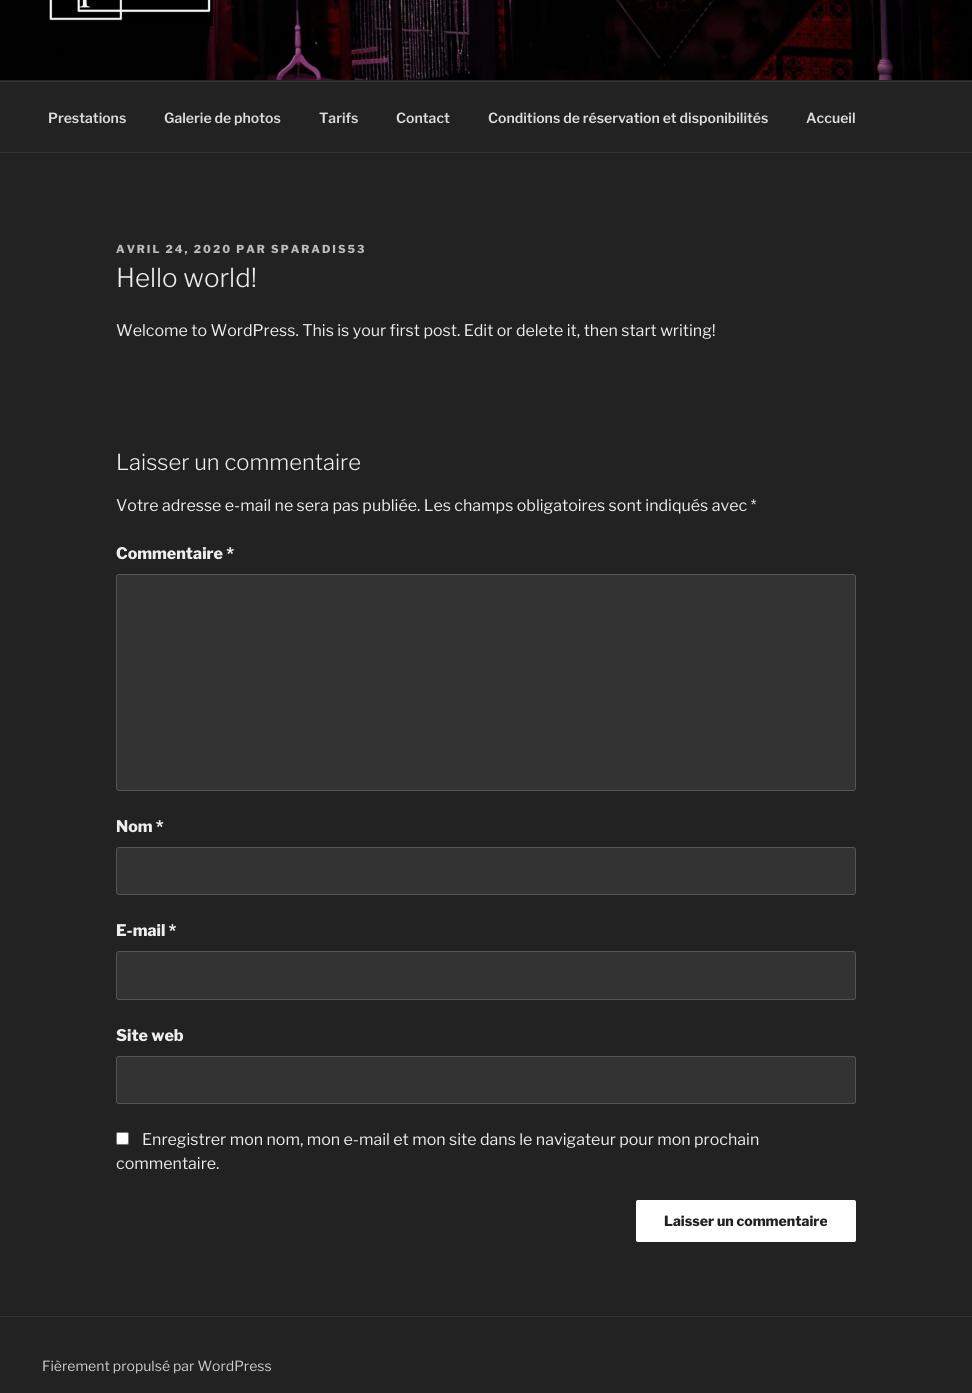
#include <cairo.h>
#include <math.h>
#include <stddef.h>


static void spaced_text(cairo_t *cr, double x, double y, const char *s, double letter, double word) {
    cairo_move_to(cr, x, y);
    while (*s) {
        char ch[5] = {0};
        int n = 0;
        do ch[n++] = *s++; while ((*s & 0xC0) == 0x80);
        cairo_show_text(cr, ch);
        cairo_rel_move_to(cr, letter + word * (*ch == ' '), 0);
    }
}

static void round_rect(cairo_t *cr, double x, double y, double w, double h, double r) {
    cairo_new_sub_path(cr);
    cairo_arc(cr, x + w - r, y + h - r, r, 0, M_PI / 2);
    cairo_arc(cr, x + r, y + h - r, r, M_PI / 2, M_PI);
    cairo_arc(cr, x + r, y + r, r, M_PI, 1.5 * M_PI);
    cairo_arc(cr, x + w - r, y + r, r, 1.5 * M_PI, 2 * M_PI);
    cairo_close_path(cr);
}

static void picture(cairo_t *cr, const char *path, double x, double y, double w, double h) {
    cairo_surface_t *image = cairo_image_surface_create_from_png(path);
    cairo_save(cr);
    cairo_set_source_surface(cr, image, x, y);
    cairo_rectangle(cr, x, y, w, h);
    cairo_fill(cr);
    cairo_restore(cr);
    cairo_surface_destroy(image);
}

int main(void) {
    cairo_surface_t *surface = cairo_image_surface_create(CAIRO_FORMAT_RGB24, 972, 1393);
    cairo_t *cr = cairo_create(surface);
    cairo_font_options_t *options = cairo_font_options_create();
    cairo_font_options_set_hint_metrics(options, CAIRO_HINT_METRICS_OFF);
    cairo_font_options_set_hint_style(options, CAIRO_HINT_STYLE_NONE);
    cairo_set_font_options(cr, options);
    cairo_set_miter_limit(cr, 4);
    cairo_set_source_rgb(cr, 0.133, 0.133, 0.133);
    cairo_paint(cr);
    cairo_set_source_rgb(cr, 0.149, 0.149, 0.149);
    cairo_rectangle(cr, 0, 80, 972, 1);
    cairo_fill(cr);
    picture(cr, "img1.png", 0, 0, 972, 80);
    picture(cr, "img2.png", 49, 0, 164, 26);
    cairo_set_source_rgb(cr, 0.2, 0.2, 0.2);
    cairo_rectangle(cr, 0, 81, 972, 1);
    cairo_fill(cr);
    cairo_rectangle(cr, 0, 152, 972, 1);
    cairo_fill(cr);
    cairo_select_font_face(cr, "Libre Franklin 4 Thin", CAIRO_FONT_SLANT_NORMAL, CAIRO_FONT_WEIGHT_NORMAL);
    cairo_set_font_size(cr, 14);
    cairo_set_source_rgb(cr, 0.867, 0.867, 0.867);
    cairo_move_to(cr, 48, 123);
    cairo_show_text(cr, "Prestations");
    cairo_move_to(cr, 164, 123);
    cairo_show_text(cr, "Galerie de photos");
    cairo_move_to(cr, 319, 123);
    cairo_show_text(cr, "Tarifs");
    cairo_move_to(cr, 396, 123);
    cairo_show_text(cr, "Contact");
    cairo_move_to(cr, 488, 123);
    cairo_show_text(cr, "Conditions de réservation et disponibilités");
    cairo_move_to(cr, 806, 123);
    cairo_show_text(cr, "Accueil");
    cairo_select_font_face(cr, "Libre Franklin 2 Thin", CAIRO_FONT_SLANT_NORMAL, CAIRO_FONT_WEIGHT_NORMAL);
    cairo_set_font_size(cr, 11);
    cairo_set_source_rgb(cr, 0.733, 0.733, 0.733);
    spaced_text(cr, 116, 253, "AVRIL 24, 2020 PAR SPARADIS53", 2, 0);
    cairo_select_font_face(cr, "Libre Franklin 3 Thin", CAIRO_FONT_SLANT_NORMAL, CAIRO_FONT_WEIGHT_NORMAL);
    cairo_set_font_size(cr, 26);
    cairo_set_source_rgb(cr, 0.933, 0.933, 0.933);
    cairo_move_to(cr, 116, 287);
    cairo_show_text(cr, "Hello world!");
    cairo_select_font_face(cr, "Libre Franklin Thin", CAIRO_FONT_SLANT_NORMAL, CAIRO_FONT_WEIGHT_NORMAL);
    cairo_set_font_size(cr, 16);
    cairo_move_to(cr, 116, 336);
    cairo_show_text(cr, "Welcome to WordPress. This is your first post. Edit or delete it, then start writing!");
    cairo_select_font_face(cr, "Libre Franklin 3 Thin", CAIRO_FONT_SLANT_NORMAL, CAIRO_FONT_WEIGHT_NORMAL);
    cairo_set_font_size(cr, 22);
    cairo_move_to(cr, 116, 470);
    cairo_show_text(cr, "Laisser un commentaire");
    cairo_select_font_face(cr, "Libre Franklin Thin", CAIRO_FONT_SLANT_NORMAL, CAIRO_FONT_WEIGHT_NORMAL);
    cairo_set_font_size(cr, 16);
    cairo_move_to(cr, 116, 511);
    cairo_show_text(cr, "Votre adresse e-mail ne sera pas publiée. Les champs obligatoires sont indiqués avec *");
    cairo_select_font_face(cr, "Libre Franklin 2 Thin", CAIRO_FONT_SLANT_NORMAL, CAIRO_FONT_WEIGHT_NORMAL);
    cairo_move_to(cr, 116, 559);
    cairo_show_text(cr, "Commentaire *");
    cairo_set_source_rgb(cr, 0.2, 0.2, 0.2);
    round_rect(cr, 116.5, 574.5, 739, 216, 2.5);
    cairo_fill_preserve(cr);
    cairo_set_source_rgb(cr, 0.333, 0.333, 0.333);
    cairo_set_line_width(cr, 1);
    cairo_stroke(cr);
    cairo_set_source_rgb(cr, 0.933, 0.933, 0.933);
    cairo_move_to(cr, 116, 832);
    cairo_show_text(cr, "Nom *");
    cairo_set_source_rgb(cr, 0.2, 0.2, 0.2);
    round_rect(cr, 116.5, 847.5, 739, 47, 2.5);
    cairo_fill_preserve(cr);
    cairo_set_source_rgb(cr, 0.333, 0.333, 0.333);
    cairo_stroke(cr);
    cairo_set_source_rgb(cr, 0.933, 0.933, 0.933);
    cairo_move_to(cr, 116, 936);
    cairo_show_text(cr, "E-mail *");
    cairo_set_source_rgb(cr, 0.2, 0.2, 0.2);
    round_rect(cr, 116.5, 951.5, 739, 48, 2.5);
    cairo_fill_preserve(cr);
    cairo_set_source_rgb(cr, 0.333, 0.333, 0.333);
    cairo_stroke(cr);
    cairo_set_source_rgb(cr, 0.933, 0.933, 0.933);
    cairo_move_to(cr, 116, 1041);
    cairo_show_text(cr, "Site web");
    cairo_set_source_rgb(cr, 0.2, 0.2, 0.2);
    round_rect(cr, 116.5, 1056.5, 739, 47, 2.5);
    cairo_fill_preserve(cr);
    cairo_set_source_rgb(cr, 0.333, 0.333, 0.333);
    cairo_stroke(cr);
    cairo_set_source_rgb(cr, 1, 1, 1);
    round_rect(cr, 116.5, 1132.5, 12, 12, 1.5);
    cairo_fill_preserve(cr);
    cairo_set_source_rgb(cr, 0.463, 0.463, 0.463);
    cairo_stroke(cr);
    cairo_select_font_face(cr, "Libre Franklin Thin", CAIRO_FONT_SLANT_NORMAL, CAIRO_FONT_WEIGHT_NORMAL);
    cairo_set_source_rgb(cr, 0.933, 0.933, 0.933);
    cairo_move_to(cr, 142, 1145);
    cairo_show_text(cr, "Enregistrer mon nom, mon e-mail et mon site dans le navigateur pour mon prochain");
    cairo_move_to(cr, 116, 1169);
    cairo_show_text(cr, "commentaire.");
    cairo_set_source_rgb(cr, 1, 1, 1);
    round_rect(cr, 636, 1200, 220, 42, 2);
    cairo_fill(cr);
    cairo_select_font_face(cr, "Libre Franklin 2 Thin", CAIRO_FONT_SLANT_NORMAL, CAIRO_FONT_WEIGHT_NORMAL);
    cairo_set_font_size(cr, 14);
    cairo_set_source_rgb(cr, 0.133, 0.133, 0.133);
    cairo_move_to(cr, 664, 1226);
    cairo_show_text(cr, "Laisser un commentaire");
    cairo_set_source_rgb(cr, 0.2, 0.2, 0.2);
    cairo_rectangle(cr, 0, 1316, 972, 1);
    cairo_fill(cr);
    cairo_select_font_face(cr, "Libre Franklin Thin", CAIRO_FONT_SLANT_NORMAL, CAIRO_FONT_WEIGHT_NORMAL);
    cairo_set_source_rgb(cr, 0.8, 0.8, 0.8);
    cairo_move_to(cr, 42, 1371);
    cairo_show_text(cr, "Fièrement propulsé par WordPress");
    cairo_surface_write_to_png(surface, "page.png");
    cairo_font_options_destroy(options);
    cairo_destroy(cr);
    cairo_surface_destroy(surface);
    return 0;
}
